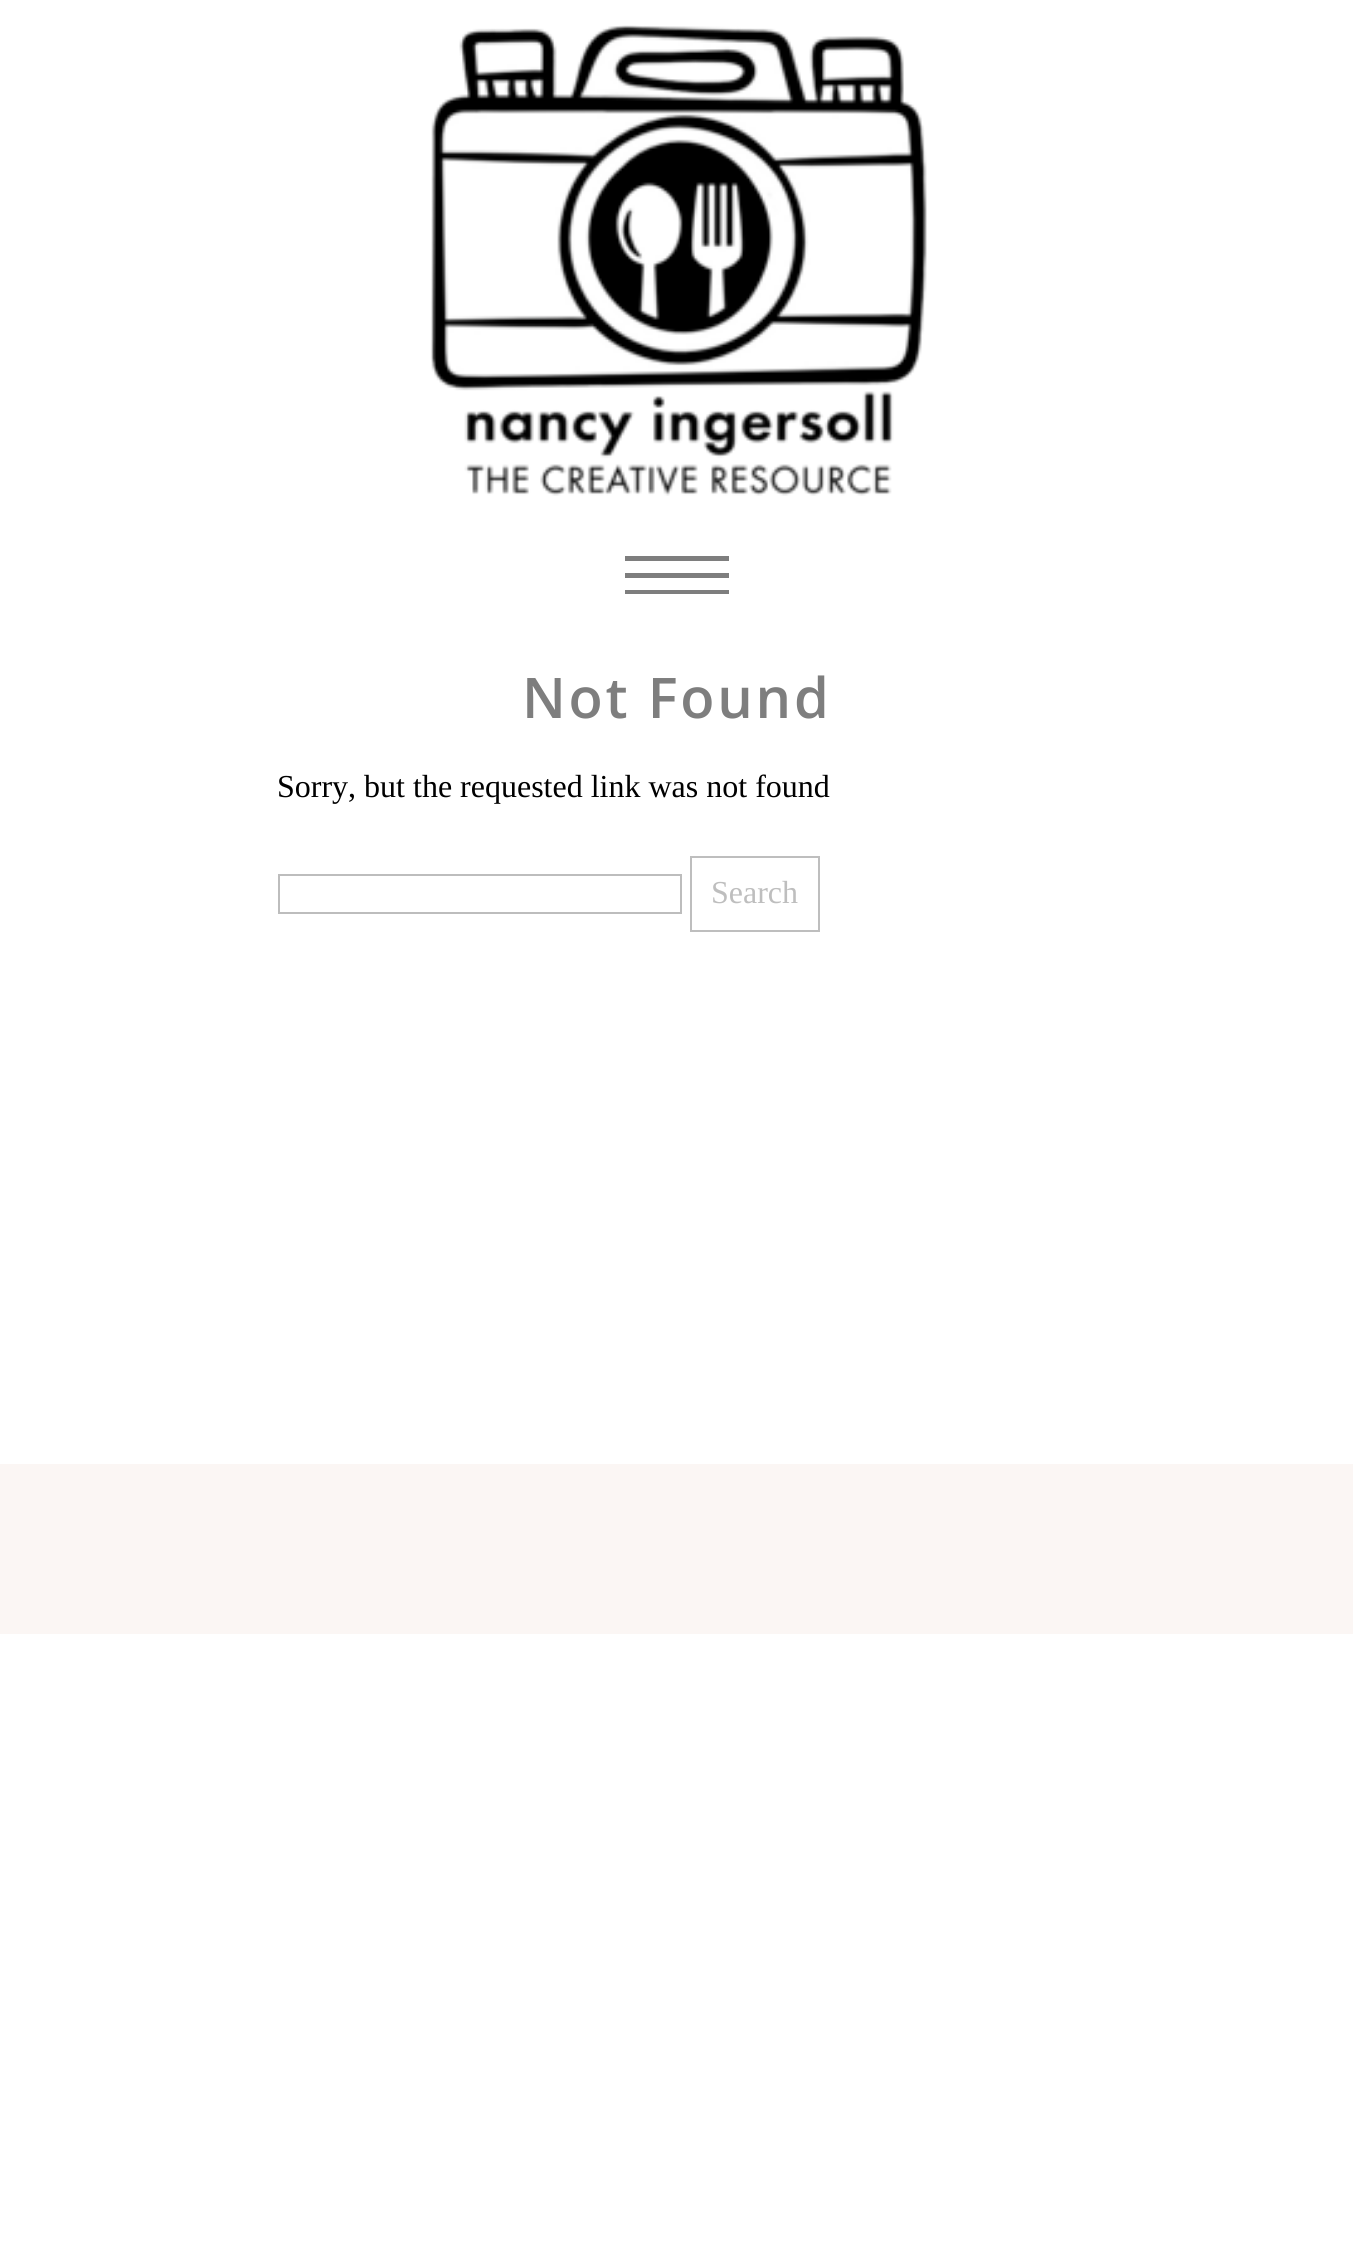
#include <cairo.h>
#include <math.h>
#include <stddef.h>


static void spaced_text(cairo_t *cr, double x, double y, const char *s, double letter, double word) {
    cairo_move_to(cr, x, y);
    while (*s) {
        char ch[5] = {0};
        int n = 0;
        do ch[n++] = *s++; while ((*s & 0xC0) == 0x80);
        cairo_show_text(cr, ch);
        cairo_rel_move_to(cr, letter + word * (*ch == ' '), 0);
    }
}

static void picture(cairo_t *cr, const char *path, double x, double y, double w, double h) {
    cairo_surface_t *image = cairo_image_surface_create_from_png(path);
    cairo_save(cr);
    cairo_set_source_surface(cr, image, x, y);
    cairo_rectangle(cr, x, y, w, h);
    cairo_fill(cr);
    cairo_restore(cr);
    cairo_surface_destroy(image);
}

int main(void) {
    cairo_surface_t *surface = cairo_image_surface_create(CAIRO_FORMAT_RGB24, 1353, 2263);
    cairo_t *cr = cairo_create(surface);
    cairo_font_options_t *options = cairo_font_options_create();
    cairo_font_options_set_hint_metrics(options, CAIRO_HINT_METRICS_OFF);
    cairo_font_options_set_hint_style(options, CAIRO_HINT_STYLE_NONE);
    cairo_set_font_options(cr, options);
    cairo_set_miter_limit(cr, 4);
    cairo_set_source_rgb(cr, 1, 1, 1);
    cairo_paint(cr);
    picture(cr, "img1.png", 430, 25, 497, 471);
    cairo_set_source_rgb(cr, 0.494, 0.494, 0.494);
    cairo_new_path(cr);
    cairo_move_to(cr, 625, 590);
    cairo_line_to(cr, 729, 590);
    cairo_line_to(cr, 729, 594);
    cairo_line_to(cr, 625, 594);
    cairo_close_path(cr);
    cairo_move_to(cr, 625, 573);
    cairo_line_to(cr, 729, 573);
    cairo_line_to(cr, 729, 578);
    cairo_line_to(cr, 625, 578);
    cairo_close_path(cr);
    cairo_move_to(cr, 625, 556);
    cairo_line_to(cr, 729, 556);
    cairo_line_to(cr, 729, 561);
    cairo_line_to(cr, 625, 561);
    cairo_close_path(cr);
    cairo_fill(cr);
    cairo_select_font_face(cr, "Open Sans SemiBold", CAIRO_FONT_SLANT_NORMAL, CAIRO_FONT_WEIGHT_NORMAL);
    cairo_set_font_size(cr, 56);
    spaced_text(cr, 522, 718, "Not Found", 2.75, 0);
    cairo_select_font_face(cr, "Liberation Serif", CAIRO_FONT_SLANT_NORMAL, CAIRO_FONT_WEIGHT_NORMAL);
    cairo_set_font_size(cr, 32);
    cairo_set_source_rgb(cr, 0, 0, 0);
    cairo_move_to(cr, 277, 797);
    cairo_show_text(cr, "Sorry, but the requested link was not found");
    cairo_rectangle(cr, 279, 875, 402, 38);
    cairo_set_source_rgb(cr, 0.741, 0.741, 0.741);
    cairo_stroke(cr);
    cairo_rectangle(cr, 691, 857, 128, 74);
    cairo_set_source_rgb(cr, 0.745, 0.745, 0.745);
    cairo_stroke(cr);
    cairo_move_to(cr, 711, 903);
    cairo_show_text(cr, "Search");
    cairo_set_source_rgb(cr, 0.984, 0.961, 0.957);
    cairo_rectangle(cr, 0, 1464, 1353, 170);
    cairo_fill(cr);
    cairo_surface_write_to_png(surface, "page.png");
    cairo_font_options_destroy(options);
    cairo_destroy(cr);
    cairo_surface_destroy(surface);
    return 0;
}
